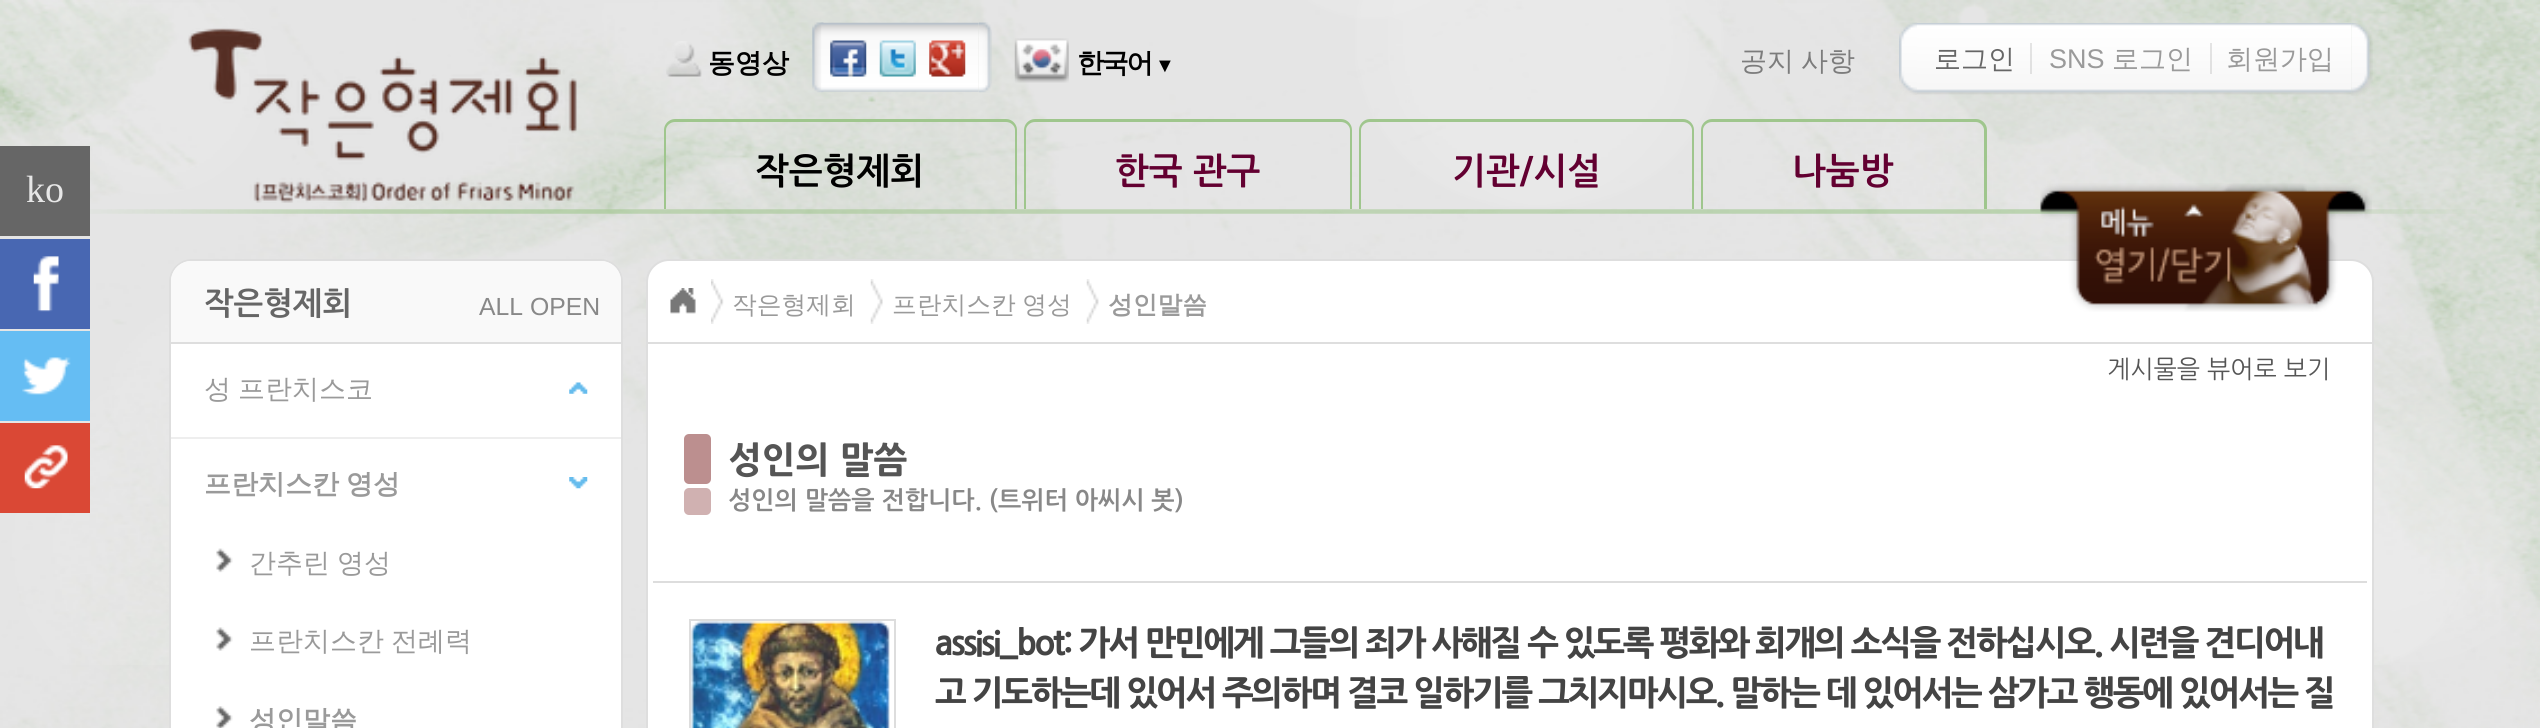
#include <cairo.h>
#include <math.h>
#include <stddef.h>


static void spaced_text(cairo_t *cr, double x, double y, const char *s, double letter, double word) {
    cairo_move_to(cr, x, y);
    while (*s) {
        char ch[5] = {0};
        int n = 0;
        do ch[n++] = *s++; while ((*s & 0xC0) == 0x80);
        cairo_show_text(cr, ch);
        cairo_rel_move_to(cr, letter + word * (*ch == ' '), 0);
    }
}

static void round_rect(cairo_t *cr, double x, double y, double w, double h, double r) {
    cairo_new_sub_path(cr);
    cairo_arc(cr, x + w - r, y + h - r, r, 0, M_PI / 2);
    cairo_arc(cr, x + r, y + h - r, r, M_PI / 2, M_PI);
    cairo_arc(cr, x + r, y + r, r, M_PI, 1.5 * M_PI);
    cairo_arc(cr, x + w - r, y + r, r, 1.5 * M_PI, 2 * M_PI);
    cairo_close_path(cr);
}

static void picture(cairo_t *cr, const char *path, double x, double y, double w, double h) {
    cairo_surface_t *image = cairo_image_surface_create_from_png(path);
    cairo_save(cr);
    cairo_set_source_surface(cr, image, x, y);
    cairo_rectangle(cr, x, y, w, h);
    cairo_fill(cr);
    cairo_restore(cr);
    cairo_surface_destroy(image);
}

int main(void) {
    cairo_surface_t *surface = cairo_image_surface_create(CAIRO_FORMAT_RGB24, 2540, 728);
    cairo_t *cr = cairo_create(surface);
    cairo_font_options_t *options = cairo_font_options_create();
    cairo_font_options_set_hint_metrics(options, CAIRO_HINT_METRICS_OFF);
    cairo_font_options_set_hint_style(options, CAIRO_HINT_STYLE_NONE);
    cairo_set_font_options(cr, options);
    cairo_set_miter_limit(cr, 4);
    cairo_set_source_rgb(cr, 1, 1, 1);
    cairo_paint(cr);
    picture(cr, "img4.png", 0, 0, 2540, 728);
    picture(cr, "img5.png", 0, 0, 2540, 665);
    cairo_set_source_rgb(cr, 0.4, 0.4, 0.4);
    cairo_rectangle(cr, 0, 146, 90, 90);
    cairo_fill(cr);
    cairo_select_font_face(cr, "Liberation Serif", CAIRO_FONT_SLANT_NORMAL, CAIRO_FONT_WEIGHT_NORMAL);
    cairo_set_font_size(cr, 38);
    cairo_set_source_rgb(cr, 0.906, 0.906, 0.906);
    cairo_move_to(cr, 26, 202);
    cairo_show_text(cr, "ko");
    cairo_set_source_rgb(cr, 0.282, 0.404, 0.698);
    cairo_rectangle(cr, 0, 239, 90, 90);
    cairo_fill(cr);
    picture(cr, "img1.png", 33, 256, 26, 56);
    cairo_set_source_rgb(cr, 0.396, 0.741, 0.953);
    cairo_rectangle(cr, 0, 331, 90, 90);
    cairo_fill(cr);
    picture(cr, "img2.png", 22, 357, 49, 38);
    cairo_set_source_rgb(cr, 0.855, 0.282, 0.208);
    cairo_rectangle(cr, 0, 423, 90, 90);
    cairo_fill(cr);
    picture(cr, "img3.png", 24, 445, 44, 44);
    picture(cr, "img6.png", 188, 28, 389, 175);
    picture(cr, "img7.png", 666, 41, 36, 36);
    cairo_select_font_face(cr, "WenQuanYi Zen Hei", CAIRO_FONT_SLANT_NORMAL, CAIRO_FONT_WEIGHT_BOLD);
    cairo_set_font_size(cr, 27);
    cairo_set_source_rgb(cr, 0, 0, 0);
    cairo_move_to(cr, 708, 72);
    cairo_show_text(cr, "동영상");
    picture(cr, "img8.png", 812, 22, 12, 71);
    picture(cr, "img9.png", 821, 22, 158, 70);
    picture(cr, "img10.png", 830, 40, 37, 37);
    picture(cr, "img11.png", 879, 40, 37, 37);
    picture(cr, "img12.png", 929, 40, 37, 37);
    picture(cr, "img13.png", 979, 22, 13, 71);
    picture(cr, "img14.png", 1014, 38, 55, 45);
    spaced_text(cr, 1077, 72, "한국어", -2.25, 0);
    cairo_select_font_face(cr, "Liberation Serif", CAIRO_FONT_SLANT_NORMAL, CAIRO_FONT_WEIGHT_BOLD);
    cairo_set_font_size(cr, 20);
    spaced_text(cr, 1155, 72, "▼", -2.25, 0);
    cairo_select_font_face(cr, "WenQuanYi Zen Hei Medium", CAIRO_FONT_SLANT_NORMAL, CAIRO_FONT_WEIGHT_NORMAL);
    cairo_set_font_size(cr, 27);
    cairo_set_source_rgb(cr, 0.486, 0.486, 0.486);
    spaced_text(cr, 1740, 70, "공지 사항", 0, -1);
    picture(cr, "img15.png", 1899, 22, 18, 73);
    picture(cr, "img16.png", 1917, 23, 435, 72);
    cairo_set_source_rgba(cr, 0, 0, 0, 0.1);
    cairo_rectangle(cr, 2030, 43, 2, 31);
    cairo_fill(cr);
    cairo_set_source_rgb(cr, 0.4, 0.4, 0.4);
    cairo_move_to(cr, 1934, 68);
    cairo_show_text(cr, "로그인");
    cairo_set_source_rgba(cr, 0, 0, 0, 0.1);
    cairo_rectangle(cr, 2210, 43, 2, 31);
    cairo_fill(cr);
    cairo_select_font_face(cr, "Liberation Sans", CAIRO_FONT_SLANT_NORMAL, CAIRO_FONT_WEIGHT_NORMAL);
    cairo_set_source_rgb(cr, 0.604, 0.604, 0.604);
    cairo_move_to(cr, 2049, 68);
    cairo_show_text(cr, "SNS");
    cairo_select_font_face(cr, "WenQuanYi Zen Hei Medium", CAIRO_FONT_SLANT_NORMAL, CAIRO_FONT_WEIGHT_NORMAL);
    cairo_move_to(cr, 2112, 68);
    cairo_show_text(cr, "로그인");
    cairo_move_to(cr, 2226, 68);
    cairo_show_text(cr, "회원가입");
    picture(cr, "img17.png", 2351, 23, 22, 73);
    cairo_set_source_rgb(cr, 0.624, 0.776, 0.553);
    cairo_set_fill_rule(cr, CAIRO_FILL_RULE_EVEN_ODD);
    cairo_new_path(cr);
    cairo_move_to(cr, 675, 119);
    cairo_line_to(cr, 1006, 119);
    cairo_curve_to(cr, 1012, 119, 1017, 124, 1017, 130);
    cairo_line_to(cr, 1017, 209);
    cairo_line_to(cr, 664, 209);
    cairo_line_to(cr, 664, 130);
    cairo_curve_to(cr, 664, 124, 669, 119, 675, 119);
    cairo_close_path(cr);
    cairo_move_to(cr, 675, 122);
    cairo_line_to(cr, 1006, 122);
    cairo_curve_to(cr, 1011, 122, 1015, 126, 1015, 130);
    cairo_line_to(cr, 1015, 209);
    cairo_line_to(cr, 666, 209);
    cairo_line_to(cr, 666, 130);
    cairo_curve_to(cr, 666, 126, 670, 122, 675, 122);
    cairo_close_path(cr);
    cairo_fill(cr);
    cairo_select_font_face(cr, "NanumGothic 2", CAIRO_FONT_SLANT_NORMAL, CAIRO_FONT_WEIGHT_BOLD);
    cairo_set_font_size(cr, 36);
    cairo_set_source_rgb(cr, 0, 0, 0);
    cairo_move_to(cr, 755, 182);
    cairo_show_text(cr, "작은형제회");
    cairo_set_source_rgb(cr, 0.624, 0.776, 0.553);
    cairo_new_path(cr);
    cairo_move_to(cr, 1035, 119);
    cairo_line_to(cr, 1341, 119);
    cairo_curve_to(cr, 1347, 119, 1352, 124, 1352, 130);
    cairo_line_to(cr, 1352, 209);
    cairo_line_to(cr, 1024, 209);
    cairo_line_to(cr, 1024, 130);
    cairo_curve_to(cr, 1024, 124, 1029, 119, 1035, 119);
    cairo_close_path(cr);
    cairo_move_to(cr, 1035, 122);
    cairo_line_to(cr, 1341, 122);
    cairo_curve_to(cr, 1346, 122, 1350, 126, 1350, 130);
    cairo_line_to(cr, 1350, 209);
    cairo_line_to(cr, 1026, 209);
    cairo_line_to(cr, 1026, 130);
    cairo_curve_to(cr, 1026, 126, 1030, 122, 1035, 122);
    cairo_close_path(cr);
    cairo_fill(cr);
    cairo_set_source_rgb(cr, 0.388, 0, 0.192);
    cairo_move_to(cr, 1115, 182);
    cairo_show_text(cr, "한국 관구");
    cairo_set_source_rgb(cr, 0.624, 0.776, 0.553);
    cairo_new_path(cr);
    cairo_move_to(cr, 1370, 119);
    cairo_line_to(cr, 1683, 119);
    cairo_curve_to(cr, 1689, 119, 1694, 124, 1694, 130);
    cairo_line_to(cr, 1694, 209);
    cairo_line_to(cr, 1359, 209);
    cairo_line_to(cr, 1359, 130);
    cairo_curve_to(cr, 1359, 124, 1364, 119, 1370, 119);
    cairo_close_path(cr);
    cairo_move_to(cr, 1370, 122);
    cairo_line_to(cr, 1683, 122);
    cairo_curve_to(cr, 1688, 122, 1692, 126, 1692, 130);
    cairo_line_to(cr, 1692, 209);
    cairo_line_to(cr, 1361, 209);
    cairo_line_to(cr, 1361, 130);
    cairo_curve_to(cr, 1361, 126, 1365, 122, 1370, 122);
    cairo_close_path(cr);
    cairo_fill(cr);
    cairo_set_source_rgb(cr, 0.388, 0, 0.192);
    cairo_move_to(cr, 1452, 182);
    cairo_show_text(cr, "기관/시설");
    cairo_set_source_rgb(cr, 0.624, 0.776, 0.553);
    cairo_new_path(cr);
    cairo_move_to(cr, 1712, 119);
    cairo_line_to(cr, 1976, 119);
    cairo_curve_to(cr, 1982, 119, 1987, 124, 1987, 130);
    cairo_line_to(cr, 1987, 209);
    cairo_line_to(cr, 1701, 209);
    cairo_line_to(cr, 1701, 130);
    cairo_curve_to(cr, 1701, 124, 1706, 119, 1712, 119);
    cairo_close_path(cr);
    cairo_move_to(cr, 1712, 122);
    cairo_line_to(cr, 1976, 122);
    cairo_curve_to(cr, 1980, 122, 1984, 126, 1984, 130);
    cairo_line_to(cr, 1984, 209);
    cairo_line_to(cr, 1703, 209);
    cairo_line_to(cr, 1703, 130);
    cairo_curve_to(cr, 1703, 126, 1707, 122, 1712, 122);
    cairo_close_path(cr);
    cairo_fill(cr);
    cairo_set_source_rgb(cr, 0.388, 0, 0.192);
    cairo_move_to(cr, 1792, 182);
    cairo_show_text(cr, "나눔방");
    picture(cr, "img19.png", 90, 209, 2387, 5);
    cairo_set_source_rgb(cr, 1, 1, 1);
    cairo_new_path(cr);
    cairo_move_to(cr, 669, 260);
    cairo_line_to(cr, 2351, 260);
    cairo_curve_to(cr, 2363, 260, 2373, 270, 2373, 282);
    cairo_line_to(cr, 2373, 343);
    cairo_line_to(cr, 647, 343);
    cairo_line_to(cr, 647, 282);
    cairo_curve_to(cr, 647, 270, 657, 260, 669, 260);
    cairo_close_path(cr);
    cairo_fill_preserve(cr);
    cairo_set_source_rgb(cr, 0.871, 0.871, 0.871);
    cairo_stroke(cr);
    picture(cr, "img18.png", 2040, 183, 332, 129);
    cairo_set_source_rgb(cr, 1, 1, 1);
    round_rect(cr, 170, 260, 452, 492, 22);
    cairo_fill_preserve(cr);
    cairo_set_source_rgb(cr, 0.871, 0.871, 0.871);
    cairo_stroke(cr);
    cairo_set_source_rgb(cr, 0.973, 0.973, 0.973);
    cairo_new_path(cr);
    cairo_move_to(cr, 191, 261);
    cairo_line_to(cr, 601, 261);
    cairo_curve_to(cr, 612, 261, 621, 270, 621, 281);
    cairo_line_to(cr, 621, 342);
    cairo_line_to(cr, 171, 342);
    cairo_line_to(cr, 171, 281);
    cairo_curve_to(cr, 171, 270, 180, 261, 191, 261);
    cairo_close_path(cr);
    cairo_fill(cr);
    cairo_set_font_size(cr, 31.5);
    cairo_set_source_rgb(cr, 0.4, 0.4, 0.4);
    cairo_move_to(cr, 204, 313);
    cairo_show_text(cr, "작은형제회");
    cairo_select_font_face(cr, "Liberation Sans", CAIRO_FONT_SLANT_NORMAL, CAIRO_FONT_WEIGHT_NORMAL);
    cairo_set_font_size(cr, 24.75);
    cairo_set_source_rgb(cr, 0.533, 0.533, 0.533);
    cairo_move_to(cr, 479, 315);
    cairo_show_text(cr, "ALL OPEN");
    cairo_set_source_rgb(cr, 0.871, 0.871, 0.871);
    cairo_rectangle(cr, 171, 342, 450, 2);
    cairo_fill(cr);
    cairo_select_font_face(cr, "WenQuanYi Zen Hei Medium", CAIRO_FONT_SLANT_NORMAL, CAIRO_FONT_WEIGHT_NORMAL);
    cairo_set_font_size(cr, 27);
    cairo_set_source_rgb(cr, 0.604, 0.604, 0.604);
    spaced_text(cr, 204, 398, "성 프란치스코", 0, -1);
    picture(cr, "img20.png", 569, 382, 19, 12);
    cairo_set_source_rgb(cr, 0.933, 0.933, 0.933);
    cairo_rectangle(cr, 171, 437, 450, 2);
    cairo_fill(cr);
    cairo_select_font_face(cr, "WenQuanYi Zen Hei", CAIRO_FONT_SLANT_NORMAL, CAIRO_FONT_WEIGHT_BOLD);
    cairo_set_source_rgb(cr, 0.604, 0.604, 0.604);
    spaced_text(cr, 204, 493, "프란치스칸 영성", 0, -1);
    picture(cr, "img21.png", 569, 477, 19, 12);
    picture(cr, "img22.png", 216, 548, 17, 25);
    cairo_select_font_face(cr, "WenQuanYi Zen Hei Medium", CAIRO_FONT_SLANT_NORMAL, CAIRO_FONT_WEIGHT_NORMAL);
    spaced_text(cr, 249, 572, "간추린 영성", 0, -1);
    picture(cr, "img23.png", 216, 627, 17, 24);
    spaced_text(cr, 249, 650, "프란치스칸 전례력", 0, -1);
    picture(cr, "img24.png", 216, 706, 17, 22);
    cairo_select_font_face(cr, "WenQuanYi Zen Hei", CAIRO_FONT_SLANT_NORMAL, CAIRO_FONT_WEIGHT_BOLD);
    cairo_move_to(cr, 249, 729);
    cairo_show_text(cr, "성인말씀");
    picture(cr, "img25.png", 670, 288, 26, 26);
    picture(cr, "img26.png", 711, 279, 13, 45);
    cairo_select_font_face(cr, "WenQuanYi Zen Hei Medium", CAIRO_FONT_SLANT_NORMAL, CAIRO_FONT_WEIGHT_NORMAL);
    cairo_set_font_size(cr, 24.75);
    cairo_move_to(cr, 732, 313);
    cairo_show_text(cr, "작은형제회");
    picture(cr, "img27.png", 870, 279, 13, 45);
    spaced_text(cr, 892, 313, "프란치스칸 영성", 0, -1);
    picture(cr, "img28.png", 1086, 279, 13, 45);
    cairo_select_font_face(cr, "WenQuanYi Zen Hei", CAIRO_FONT_SLANT_NORMAL, CAIRO_FONT_WEIGHT_BOLD);
    cairo_move_to(cr, 1108, 313);
    cairo_show_text(cr, "성인말씀");
    cairo_set_source_rgb(cr, 1, 1, 1);
    cairo_rectangle(cr, 648, 344, 1724, 384);
    cairo_fill(cr);
    cairo_set_source_rgb(cr, 0.871, 0.871, 0.871);
    cairo_new_path(cr);
    cairo_move_to(cr, 646, 344);
    cairo_line_to(cr, 2374, 344);
    cairo_line_to(cr, 2374, 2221);
    cairo_curve_to(cr, 2374, 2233, 2364, 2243, 2351, 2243);
    cairo_line_to(cr, 668, 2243);
    cairo_curve_to(cr, 656, 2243, 646, 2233, 646, 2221);
    cairo_close_path(cr);
    cairo_move_to(cr, 648, 344);
    cairo_line_to(cr, 2372, 344);
    cairo_line_to(cr, 2372, 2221);
    cairo_curve_to(cr, 2372, 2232, 2362, 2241, 2351, 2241);
    cairo_line_to(cr, 668, 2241);
    cairo_curve_to(cr, 657, 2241, 648, 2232, 648, 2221);
    cairo_close_path(cr);
    cairo_fill(cr);
    cairo_select_font_face(cr, "NanumGothic", CAIRO_FONT_SLANT_NORMAL, CAIRO_FONT_WEIGHT_NORMAL);
    cairo_set_source_rgb(cr, 0.333, 0.333, 0.333);
    cairo_move_to(cr, 2107, 378);
    cairo_show_text(cr, "게시물을 뷰어로 보기");
    cairo_set_source_rgb(cr, 0.737, 0.561, 0.561);
    round_rect(cr, 684, 434, 27, 50, 5);
    cairo_fill(cr);
    cairo_select_font_face(cr, "NanumGothic ExtraBold", CAIRO_FONT_SLANT_NORMAL, CAIRO_FONT_WEIGHT_NORMAL);
    cairo_set_font_size(cr, 36);
    cairo_set_source_rgb(cr, 0.333, 0.333, 0.333);
    cairo_move_to(cr, 728, 473);
    cairo_show_text(cr, "성인의 말씀");
    cairo_set_source_rgb(cr, 0.816, 0.694, 0.694);
    round_rect(cr, 684, 488, 27, 27, 5);
    cairo_fill(cr);
    cairo_select_font_face(cr, "NanumGothic", CAIRO_FONT_SLANT_NORMAL, CAIRO_FONT_WEIGHT_BOLD);
    cairo_set_font_size(cr, 24.75);
    cairo_set_source_rgb(cr, 0.533, 0.533, 0.533);
    cairo_move_to(cr, 728, 509);
    cairo_show_text(cr, "성인의 말씀을 전합니다. (트위터 아씨시 봇)");
    cairo_set_source_rgb(cr, 0.867, 0.867, 0.867);
    cairo_rectangle(cr, 653, 581, 1714, 2);
    cairo_fill(cr);
    picture(cr, "img29.png", 691, 621, 199, 107);
    cairo_rectangle(cr, 690, 620, 205, 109);
    cairo_stroke(cr);
    cairo_select_font_face(cr, "NanumGothic ExtraBold", CAIRO_FONT_SLANT_NORMAL, CAIRO_FONT_WEIGHT_NORMAL);
    cairo_set_font_size(cr, 33.75);
    cairo_set_source_rgb(cr, 0.267, 0.267, 0.267);
    spaced_text(cr, 935, 655, "assisi_bot: 가서 만민에게 그들의 죄가 사해질 수 있도록 평화와 회개의 소식을 전하십시오. 시련을 견디어내", -2.25, 0);
    spaced_text(cr, 935, 705, "고 기도하는데 있어서 주의하며 결코 일하기를 그치지마시오. 말하는 데 있어서는 삼가고 행동에 있어서는 질", -2.25, 0);
    cairo_surface_write_to_png(surface, "page.png");
    cairo_font_options_destroy(options);
    cairo_destroy(cr);
    cairo_surface_destroy(surface);
    return 0;
}
